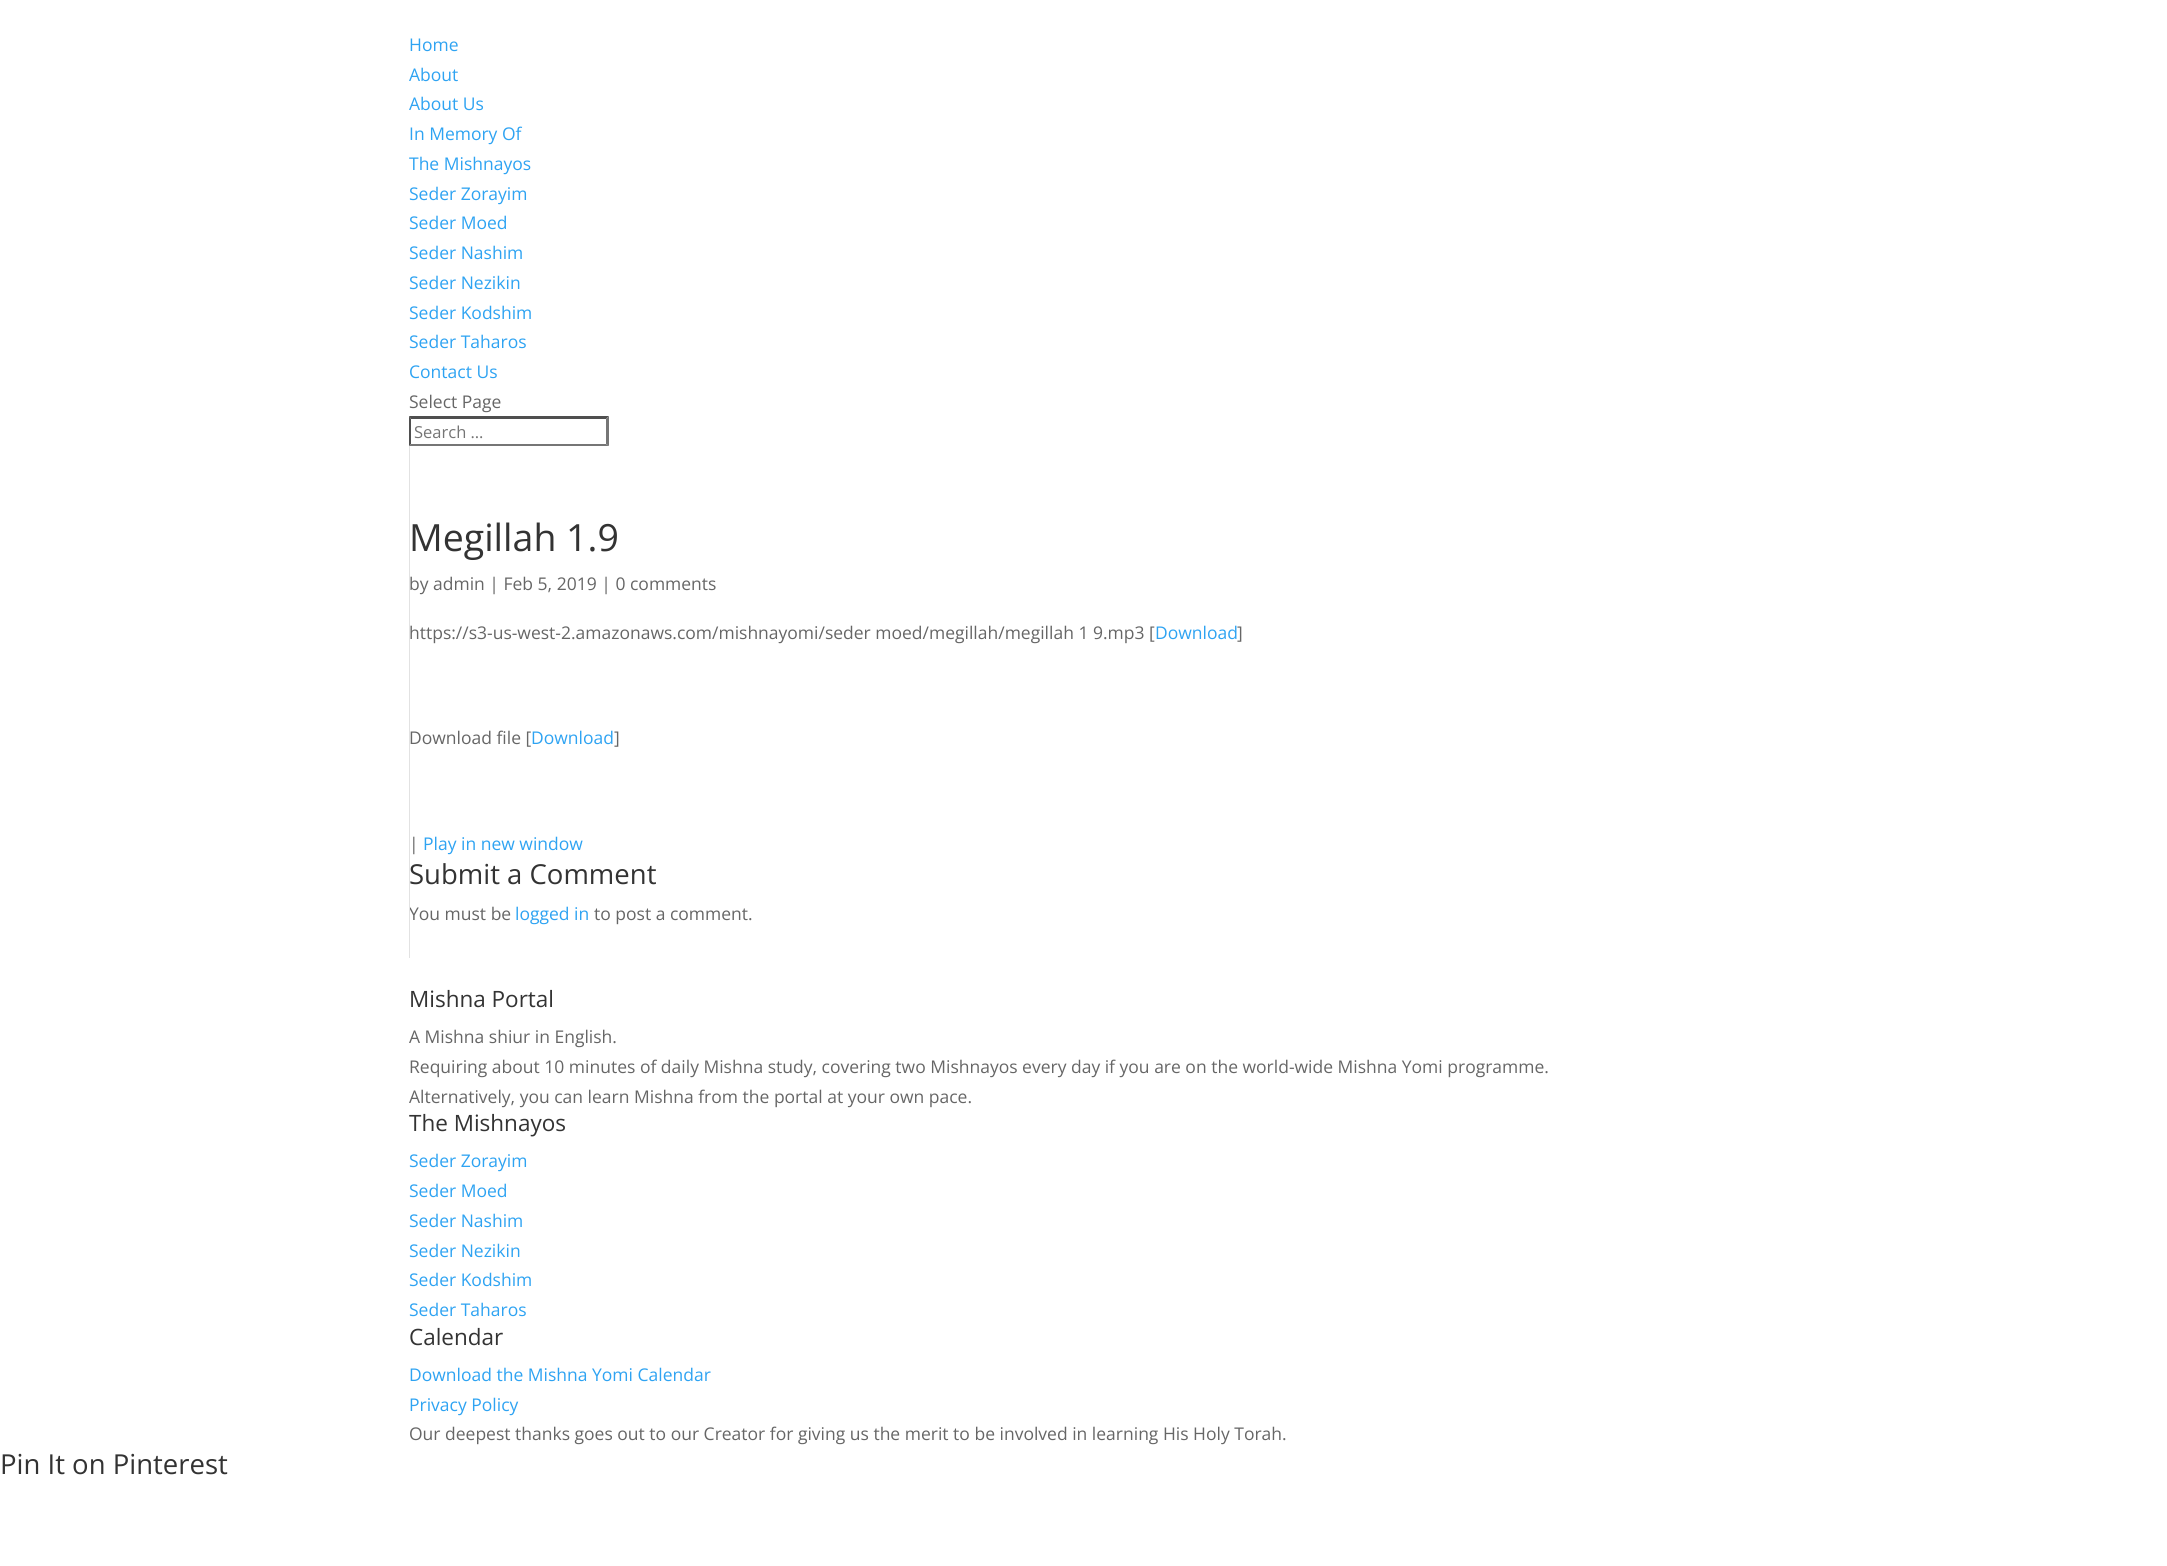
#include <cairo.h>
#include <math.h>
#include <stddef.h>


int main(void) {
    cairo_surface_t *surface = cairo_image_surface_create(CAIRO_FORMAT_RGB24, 2167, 1566);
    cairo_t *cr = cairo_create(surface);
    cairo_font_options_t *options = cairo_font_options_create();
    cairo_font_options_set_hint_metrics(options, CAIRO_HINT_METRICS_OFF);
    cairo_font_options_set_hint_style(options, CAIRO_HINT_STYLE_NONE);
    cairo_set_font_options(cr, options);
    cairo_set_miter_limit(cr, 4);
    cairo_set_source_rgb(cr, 1, 1, 1);
    cairo_paint(cr);
    cairo_select_font_face(cr, "Open Sans", CAIRO_FONT_SLANT_NORMAL, CAIRO_FONT_WEIGHT_NORMAL);
    cairo_set_font_size(cr, 17.5);
    cairo_set_source_rgb(cr, 0.18, 0.639, 0.949);
    cairo_move_to(cr, 409, 51);
    cairo_show_text(cr, "Home");
    cairo_move_to(cr, 409, 81);
    cairo_show_text(cr, "About");
    cairo_move_to(cr, 409, 110);
    cairo_show_text(cr, "About Us");
    cairo_move_to(cr, 409, 140);
    cairo_show_text(cr, "In Memory Of");
    cairo_move_to(cr, 409, 170);
    cairo_show_text(cr, "The Mishnayos");
    cairo_move_to(cr, 409, 200);
    cairo_show_text(cr, "Seder Zorayim");
    cairo_move_to(cr, 409, 229);
    cairo_show_text(cr, "Seder Moed");
    cairo_move_to(cr, 409, 259);
    cairo_show_text(cr, "Seder Nashim");
    cairo_move_to(cr, 409, 289);
    cairo_show_text(cr, "Seder Nezikin");
    cairo_move_to(cr, 409, 319);
    cairo_show_text(cr, "Seder Kodshim");
    cairo_move_to(cr, 409, 348);
    cairo_show_text(cr, "Seder Taharos");
    cairo_move_to(cr, 409, 378);
    cairo_show_text(cr, "Contact Us");
    cairo_set_source_rgb(cr, 0.4, 0.4, 0.4);
    cairo_move_to(cr, 409, 408);
    cairo_show_text(cr, "Select Page");
    cairo_set_source_rgb(cr, 0.31, 0.31, 0.31);
    cairo_new_path(cr);
    cairo_move_to(cr, 409, 416);
    cairo_line_to(cr, 609, 416);
    cairo_line_to(cr, 606, 419);
    cairo_line_to(cr, 411, 419);
    cairo_close_path(cr);
    cairo_fill(cr);
    cairo_set_source_rgb(cr, 0.463, 0.463, 0.463);
    cairo_new_path(cr);
    cairo_move_to(cr, 609, 416);
    cairo_line_to(cr, 609, 446);
    cairo_line_to(cr, 606, 444);
    cairo_line_to(cr, 606, 419);
    cairo_close_path(cr);
    cairo_fill(cr);
    cairo_new_path(cr);
    cairo_move_to(cr, 609, 446);
    cairo_line_to(cr, 409, 446);
    cairo_line_to(cr, 411, 444);
    cairo_line_to(cr, 606, 444);
    cairo_close_path(cr);
    cairo_fill(cr);
    cairo_set_source_rgb(cr, 0.31, 0.31, 0.31);
    cairo_new_path(cr);
    cairo_move_to(cr, 409, 446);
    cairo_line_to(cr, 409, 416);
    cairo_line_to(cr, 411, 419);
    cairo_line_to(cr, 411, 444);
    cairo_close_path(cr);
    cairo_fill(cr);
    cairo_set_font_size(cr, 16.5);
    cairo_set_source_rgb(cr, 0.459, 0.459, 0.459);
    cairo_move_to(cr, 414, 438);
    cairo_show_text(cr, "Search …");
    cairo_set_font_size(cr, 17.5);
    cairo_set_source_rgb(cr, 0.4, 0.4, 0.4);
    cairo_move_to(cr, 409, 920);
    cairo_show_text(cr, "You must be");
    cairo_set_source_rgb(cr, 0.886, 0.886, 0.886);
    cairo_rectangle(cr, 409, 446, 1, 512);
    cairo_fill(cr);
    cairo_set_font_size(cr, 37.5);
    cairo_set_source_rgb(cr, 0.2, 0.2, 0.2);
    cairo_move_to(cr, 409, 551);
    cairo_show_text(cr, "Megillah 1.9");
    cairo_set_font_size(cr, 17.5);
    cairo_set_source_rgb(cr, 0.4, 0.4, 0.4);
    cairo_move_to(cr, 409, 590);
    cairo_show_text(cr, "by admin | Feb 5, 2019 | 0 comments");
    cairo_move_to(cr, 409, 639);
    cairo_show_text(cr, "https://s3-us-west-2.amazonaws.com/mishnayomi/seder moed/megillah/megillah 1 9.mp3 [");
    cairo_set_source_rgb(cr, 0.18, 0.639, 0.949);
    cairo_move_to(cr, 1155, 639);
    cairo_show_text(cr, "Download");
    cairo_set_source_rgb(cr, 0.4, 0.4, 0.4);
    cairo_move_to(cr, 1237, 639);
    cairo_show_text(cr, "]");
    cairo_move_to(cr, 409, 744);
    cairo_show_text(cr, "Download file [");
    cairo_set_source_rgb(cr, 0.18, 0.639, 0.949);
    cairo_move_to(cr, 531, 744);
    cairo_show_text(cr, "Download");
    cairo_set_source_rgb(cr, 0.4, 0.4, 0.4);
    cairo_move_to(cr, 614, 744);
    cairo_show_text(cr, "]");
    cairo_move_to(cr, 409, 850);
    cairo_show_text(cr, "|");
    cairo_set_source_rgb(cr, 0.18, 0.639, 0.949);
    cairo_move_to(cr, 423, 850);
    cairo_show_text(cr, "Play in new window");
    cairo_set_font_size(cr, 27.5);
    cairo_set_source_rgb(cr, 0.2, 0.2, 0.2);
    cairo_move_to(cr, 409, 884);
    cairo_show_text(cr, "Submit a Comment");
    cairo_set_font_size(cr, 17.5);
    cairo_set_source_rgb(cr, 0.18, 0.639, 0.949);
    cairo_move_to(cr, 515, 920);
    cairo_show_text(cr, "logged in");
    cairo_set_source_rgb(cr, 0.4, 0.4, 0.4);
    cairo_move_to(cr, 594, 920);
    cairo_show_text(cr, "to post a comment.");
    cairo_set_font_size(cr, 22.5);
    cairo_set_source_rgb(cr, 0.2, 0.2, 0.2);
    cairo_move_to(cr, 409, 1007);
    cairo_show_text(cr, "Mishna Portal");
    cairo_set_font_size(cr, 17.5);
    cairo_set_source_rgb(cr, 0.4, 0.4, 0.4);
    cairo_move_to(cr, 409, 1043);
    cairo_show_text(cr, "A Mishna shiur in English.");
    cairo_move_to(cr, 409, 1073);
    cairo_show_text(cr, "Requiring about 10 minutes of daily Mishna study, covering two Mishnayos every day if you are on the world-wide Mishna Yomi programme.");
    cairo_move_to(cr, 409, 1103);
    cairo_show_text(cr, "Alternatively, you can learn Mishna from the portal at your own pace.");
    cairo_set_font_size(cr, 22.5);
    cairo_set_source_rgb(cr, 0.2, 0.2, 0.2);
    cairo_move_to(cr, 409, 1131);
    cairo_show_text(cr, "The Mishnayos");
    cairo_set_font_size(cr, 17.5);
    cairo_set_source_rgb(cr, 0.18, 0.639, 0.949);
    cairo_move_to(cr, 409, 1167);
    cairo_show_text(cr, "Seder Zorayim");
    cairo_move_to(cr, 409, 1197);
    cairo_show_text(cr, "Seder Moed");
    cairo_move_to(cr, 409, 1227);
    cairo_show_text(cr, "Seder Nashim");
    cairo_move_to(cr, 409, 1257);
    cairo_show_text(cr, "Seder Nezikin");
    cairo_move_to(cr, 409, 1286);
    cairo_show_text(cr, "Seder Kodshim");
    cairo_move_to(cr, 409, 1316);
    cairo_show_text(cr, "Seder Taharos");
    cairo_set_font_size(cr, 22.5);
    cairo_set_source_rgb(cr, 0.2, 0.2, 0.2);
    cairo_move_to(cr, 409, 1345);
    cairo_show_text(cr, "Calendar");
    cairo_set_font_size(cr, 17.5);
    cairo_set_source_rgb(cr, 0.18, 0.639, 0.949);
    cairo_move_to(cr, 409, 1381);
    cairo_show_text(cr, "Download the Mishna Yomi Calendar");
    cairo_move_to(cr, 409, 1411);
    cairo_show_text(cr, "Privacy Policy");
    cairo_set_source_rgb(cr, 0.4, 0.4, 0.4);
    cairo_move_to(cr, 409, 1440);
    cairo_show_text(cr, "Our deepest thanks goes out to our Creator for giving us the merit to be involved in learning His Holy Torah.");
    cairo_set_font_size(cr, 27.5);
    cairo_set_source_rgb(cr, 0.2, 0.2, 0.2);
    cairo_move_to(cr, 0, 1474);
    cairo_show_text(cr, "Pin It on Pinterest");
    cairo_surface_write_to_png(surface, "page.png");
    cairo_font_options_destroy(options);
    cairo_destroy(cr);
    cairo_surface_destroy(surface);
    return 0;
}
